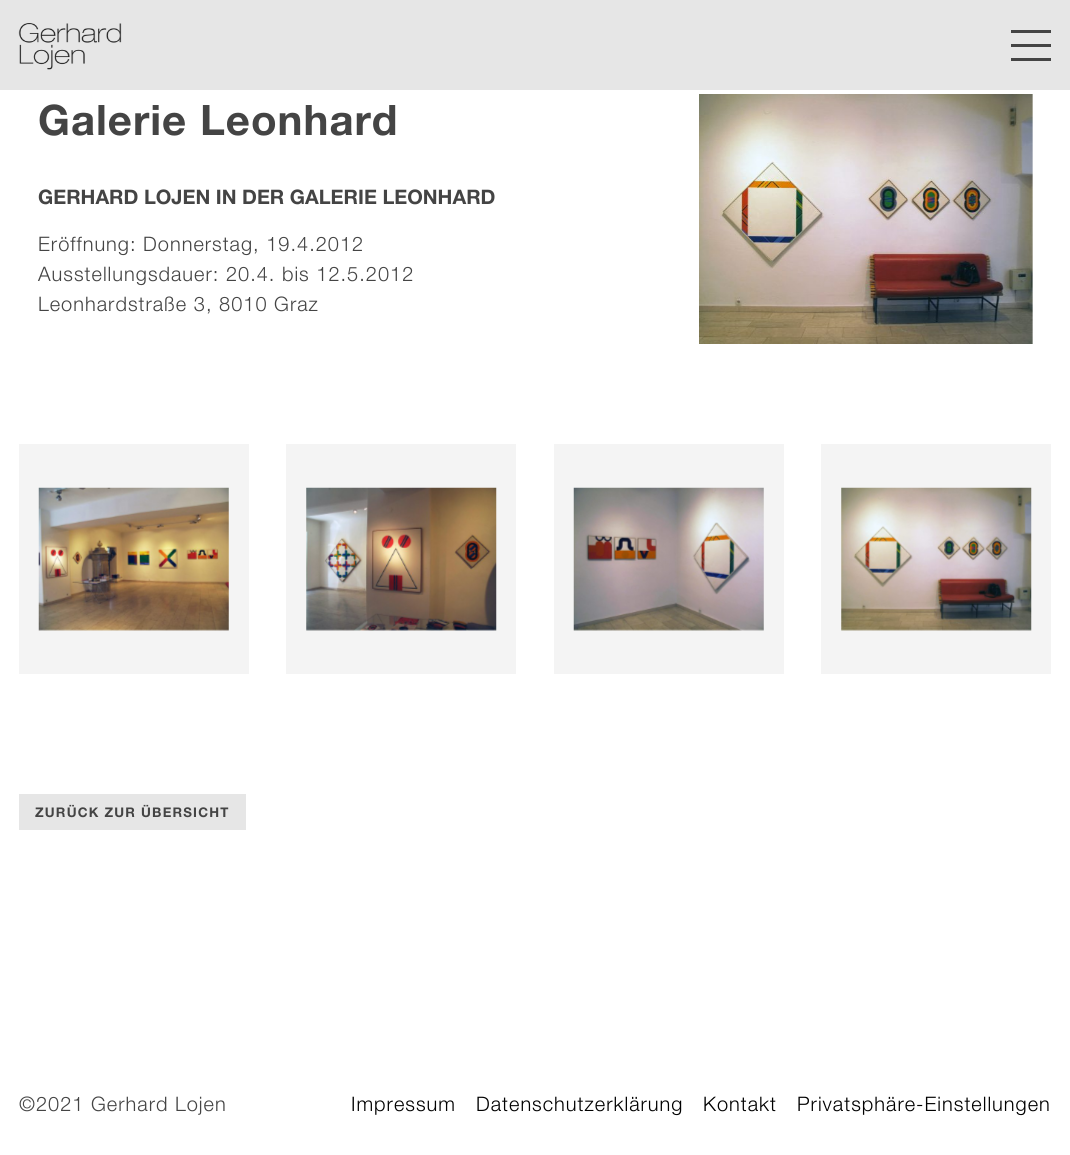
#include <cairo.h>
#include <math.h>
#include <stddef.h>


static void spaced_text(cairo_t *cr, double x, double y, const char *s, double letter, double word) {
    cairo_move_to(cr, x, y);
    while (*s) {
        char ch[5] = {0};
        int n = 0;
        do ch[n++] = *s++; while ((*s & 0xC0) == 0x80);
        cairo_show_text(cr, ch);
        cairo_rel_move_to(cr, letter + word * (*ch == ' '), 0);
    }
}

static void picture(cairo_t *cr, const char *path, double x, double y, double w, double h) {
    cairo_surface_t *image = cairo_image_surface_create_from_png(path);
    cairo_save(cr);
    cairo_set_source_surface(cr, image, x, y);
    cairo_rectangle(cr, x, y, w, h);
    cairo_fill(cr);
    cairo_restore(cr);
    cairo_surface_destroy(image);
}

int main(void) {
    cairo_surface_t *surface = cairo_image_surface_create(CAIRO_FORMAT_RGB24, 1070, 1155);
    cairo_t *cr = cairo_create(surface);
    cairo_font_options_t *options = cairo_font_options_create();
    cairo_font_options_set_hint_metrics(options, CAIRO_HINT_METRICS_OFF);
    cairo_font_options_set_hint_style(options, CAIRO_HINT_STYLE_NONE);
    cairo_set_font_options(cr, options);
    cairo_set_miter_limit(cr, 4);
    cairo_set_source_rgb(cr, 1, 1, 1);
    cairo_paint(cr);
    cairo_set_source_rgb(cr, 0.902, 0.902, 0.902);
    cairo_rectangle(cr, 0, 0, 1070, 90);
    cairo_fill(cr);
    picture(cr, "img1.png", 18, 23, 104, 47);
    cairo_set_source_rgb(cr, 0.267, 0.267, 0.267);
    cairo_rectangle(cr, 1011, 30, 40, 3);
    cairo_fill(cr);
    cairo_rectangle(cr, 1011, 44, 40, 3);
    cairo_fill(cr);
    cairo_rectangle(cr, 1011, 58, 40, 3);
    cairo_fill(cr);
    cairo_select_font_face(cr, "Helvetica Neue", CAIRO_FONT_SLANT_NORMAL, CAIRO_FONT_WEIGHT_BOLD);
    cairo_set_font_size(cr, 42);
    spaced_text(cr, 38, 135, "Galerie Leonhard", 1, 0);
    cairo_set_font_size(cr, 20);
    cairo_move_to(cr, 38, 204);
    cairo_show_text(cr, "GERHARD LOJEN IN DER GALERIE LEONHARD");
    cairo_select_font_face(cr, "Helvetica Neue Light", CAIRO_FONT_SLANT_NORMAL, CAIRO_FONT_WEIGHT_NORMAL);
    spaced_text(cr, 38, 251, "Eröffnung: Donnerstag, 19.4.2012", 1, 0);
    spaced_text(cr, 38, 281, "Ausstellungsdauer: 20.4. bis 12.5.2012", 1, 0);
    spaced_text(cr, 38, 311, "Leonhardstraße 3, 8010 Graz", 1, 0);
    picture(cr, "img2.png", 699, 94, 334, 250);
    cairo_set_source_rgb(cr, 0.957, 0.957, 0.957);
    cairo_rectangle(cr, 19, 444, 230, 230);
    cairo_fill(cr);
    picture(cr, "img3.png", 38, 487, 191, 144);
    cairo_rectangle(cr, 286, 444, 230, 230);
    cairo_fill(cr);
    picture(cr, "img4.png", 306, 487, 191, 144);
    cairo_rectangle(cr, 554, 444, 230, 230);
    cairo_fill(cr);
    picture(cr, "img5.png", 573, 487, 191, 144);
    cairo_rectangle(cr, 821, 444, 230, 230);
    cairo_fill(cr);
    picture(cr, "img6.png", 841, 487, 191, 144);
    cairo_set_source_rgb(cr, 0.902, 0.902, 0.902);
    cairo_rectangle(cr, 19, 794, 227, 36);
    cairo_fill(cr);
    cairo_select_font_face(cr, "Helvetica Neue", CAIRO_FONT_SLANT_NORMAL, CAIRO_FONT_WEIGHT_BOLD);
    cairo_set_font_size(cr, 13.3);
    cairo_set_source_rgb(cr, 0.267, 0.267, 0.267);
    spaced_text(cr, 35, 817, "ZURÜCK ZUR ÜBERSICHT", 1.2, 0);
    cairo_select_font_face(cr, "Helvetica Neue Light", CAIRO_FONT_SLANT_NORMAL, CAIRO_FONT_WEIGHT_NORMAL);
    cairo_set_font_size(cr, 20);
    spaced_text(cr, 19, 1111, "©2021 Gerhard Lojen", 1, 0);
    cairo_set_source_rgb(cr, 0, 0, 0);
    spaced_text(cr, 351, 1111, "Impressum", 1, 0);
    spaced_text(cr, 476, 1111, "Datenschutzerklärung", 1, 0);
    spaced_text(cr, 703, 1111, "Kontakt", 1, 0);
    spaced_text(cr, 797, 1111, "Privatsphäre-Einstellungen", 1, 0);
    cairo_surface_write_to_png(surface, "page.png");
    cairo_font_options_destroy(options);
    cairo_destroy(cr);
    cairo_surface_destroy(surface);
    return 0;
}
